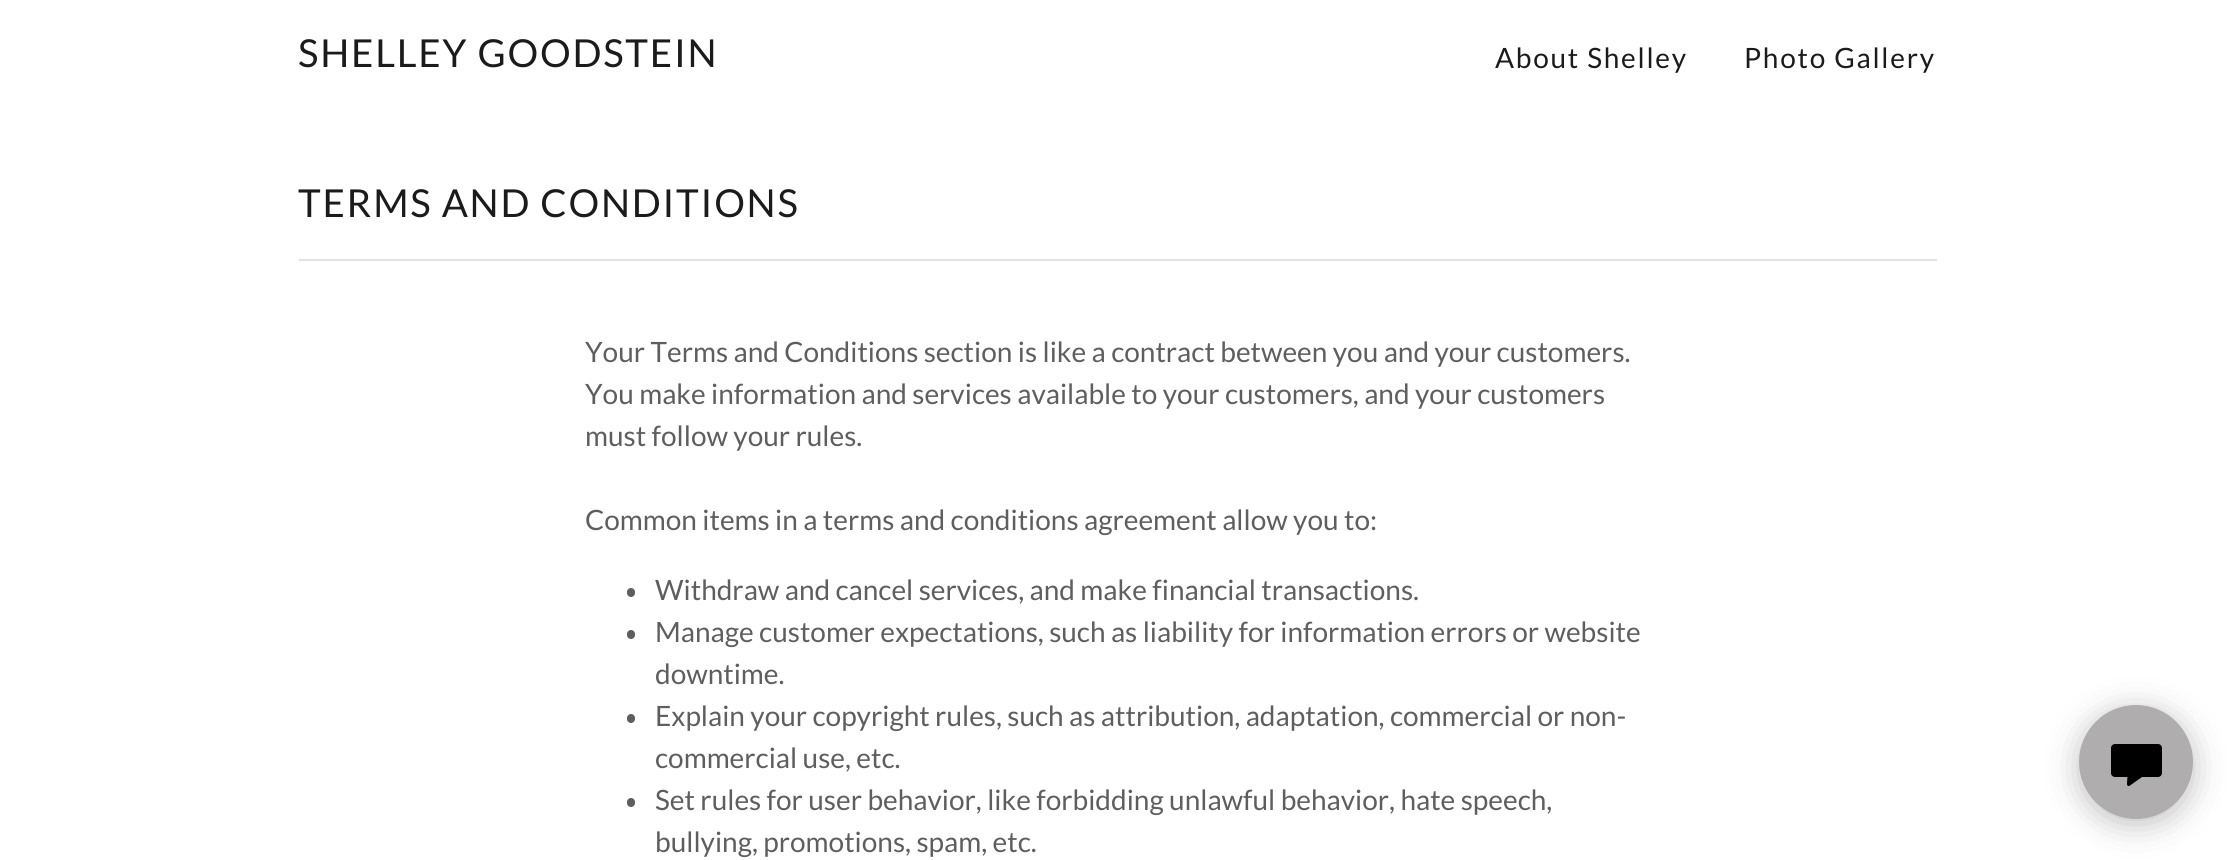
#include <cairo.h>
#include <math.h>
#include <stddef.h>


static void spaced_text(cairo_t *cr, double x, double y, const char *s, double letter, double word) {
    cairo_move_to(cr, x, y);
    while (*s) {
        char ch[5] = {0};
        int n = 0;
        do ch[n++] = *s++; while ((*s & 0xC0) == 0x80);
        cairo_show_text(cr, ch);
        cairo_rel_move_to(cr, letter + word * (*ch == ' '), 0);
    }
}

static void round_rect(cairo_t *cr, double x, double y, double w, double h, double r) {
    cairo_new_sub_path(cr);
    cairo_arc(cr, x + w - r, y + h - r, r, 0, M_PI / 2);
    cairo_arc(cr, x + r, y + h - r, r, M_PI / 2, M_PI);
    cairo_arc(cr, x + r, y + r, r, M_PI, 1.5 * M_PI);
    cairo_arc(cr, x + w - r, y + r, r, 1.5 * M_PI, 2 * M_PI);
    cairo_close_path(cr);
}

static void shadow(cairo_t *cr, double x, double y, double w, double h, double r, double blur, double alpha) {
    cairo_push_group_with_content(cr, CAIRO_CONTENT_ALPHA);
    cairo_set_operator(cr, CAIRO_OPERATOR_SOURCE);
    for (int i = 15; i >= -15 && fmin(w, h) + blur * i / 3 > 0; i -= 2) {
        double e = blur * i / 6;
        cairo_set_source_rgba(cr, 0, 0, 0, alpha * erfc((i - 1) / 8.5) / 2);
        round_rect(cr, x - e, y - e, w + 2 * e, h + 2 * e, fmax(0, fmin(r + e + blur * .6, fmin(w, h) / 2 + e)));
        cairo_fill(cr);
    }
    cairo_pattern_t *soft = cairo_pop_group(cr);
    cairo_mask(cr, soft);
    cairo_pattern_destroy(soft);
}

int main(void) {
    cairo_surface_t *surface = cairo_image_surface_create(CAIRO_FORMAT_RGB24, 2234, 860);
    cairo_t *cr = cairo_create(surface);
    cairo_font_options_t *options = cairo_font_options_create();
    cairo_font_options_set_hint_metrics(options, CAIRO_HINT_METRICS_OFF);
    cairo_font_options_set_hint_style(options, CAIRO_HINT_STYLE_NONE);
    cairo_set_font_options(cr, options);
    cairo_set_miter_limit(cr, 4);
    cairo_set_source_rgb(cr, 1, 1, 1);
    cairo_paint(cr);
    cairo_select_font_face(cr, "Lato", CAIRO_FONT_SLANT_NORMAL, CAIRO_FONT_WEIGHT_NORMAL);
    cairo_set_font_size(cr, 38.5);
    cairo_set_source_rgb(cr, 0.106, 0.106, 0.106);
    spaced_text(cr, 298, 67, "SHELLEY GOODSTEIN", 1.75, 0);
    cairo_set_font_size(cr, 28);
    spaced_text(cr, 1495, 68, "About Shelley", 1.75, 0);
    spaced_text(cr, 1744, 68, "Photo Gallery", 1.75, 0);
    cairo_set_font_size(cr, 38.5);
    spaced_text(cr, 298, 217, "TERMS AND CONDITIONS", 1.75, 0);
    cairo_set_source_rgb(cr, 0.886, 0.886, 0.886);
    cairo_rectangle(cr, 299, 259, 1638, 2);
    cairo_fill(cr);
    cairo_set_font_size(cr, 28);
    cairo_set_source_rgb(cr, 0.369, 0.369, 0.369);
    cairo_move_to(cr, 585, 362);
    cairo_show_text(cr, "Your Terms and Conditions section is like a contract between you and your customers.");
    cairo_move_to(cr, 585, 404);
    cairo_show_text(cr, "You make information and services available to your customers, and your customers");
    cairo_move_to(cr, 585, 446);
    cairo_show_text(cr, "must follow your rules.");
    cairo_move_to(cr, 585, 530);
    cairo_show_text(cr, "Common items in a terms and conditions agreement allow you to:");
    round_rect(cr, 627, 588, 8, 9, 4);
    cairo_fill(cr);
    cairo_move_to(cr, 655, 600);
    cairo_show_text(cr, "Withdraw and cancel services, and make financial transactions.");
    round_rect(cr, 627, 630, 8, 9, 4);
    cairo_fill(cr);
    cairo_move_to(cr, 655, 642);
    cairo_show_text(cr, "Manage customer expectations, such as liability for information errors or website");
    cairo_move_to(cr, 655, 684);
    cairo_show_text(cr, "downtime.");
    round_rect(cr, 627, 714, 8, 9, 4);
    cairo_fill(cr);
    cairo_move_to(cr, 655, 726);
    cairo_show_text(cr, "Explain your copyright rules, such as attribution, adaptation, commercial or non-");
    cairo_move_to(cr, 655, 768);
    cairo_show_text(cr, "commercial use, etc.");
    round_rect(cr, 627, 798, 8, 9, 4);
    cairo_fill(cr);
    cairo_move_to(cr, 655, 810);
    cairo_show_text(cr, "Set rules for user behavior, like forbidding unlawful behavior, hate speech,");
    cairo_move_to(cr, 655, 852);
    cairo_show_text(cr, "bullying, promotions, spam, etc.");
    cairo_set_source_rgb(cr, 0, 0, 0);
    shadow(cr, 2079, 711, 114, 113, 56.5, 16, 0.25);
    cairo_set_source_rgb(cr, 0.686, 0.678, 0.682);
    cairo_arc(cr, 2136, 762, 57, 0, 2 * M_PI);
    cairo_fill(cr);
    cairo_set_source_rgb(cr, 0, 0, 0);
    round_rect(cr, 2111, 744, 51, 33, 4);
    cairo_fill(cr);
    cairo_new_path(cr);
    cairo_move_to(cr, 2127, 784);
    cairo_line_to(cr, 2127.5, 775.5);
    cairo_curve_to(cr, 2128, 774.5, 2128.5, 773.5, 2129.5, 773.5);
    cairo_line_to(cr, 2141, 773.5);
    cairo_curve_to(cr, 2143, 773.5, 2143.5, 776, 2142, 777);
    cairo_line_to(cr, 2130, 785.5);
    cairo_curve_to(cr, 2129.5, 786, 2128.5, 786, 2128, 786);
    cairo_curve_to(cr, 2127.5, 785.5, 2127, 785, 2127, 784);
    cairo_close_path(cr);
    cairo_fill(cr);
    cairo_surface_write_to_png(surface, "page.png");
    cairo_font_options_destroy(options);
    cairo_destroy(cr);
    cairo_surface_destroy(surface);
    return 0;
}
